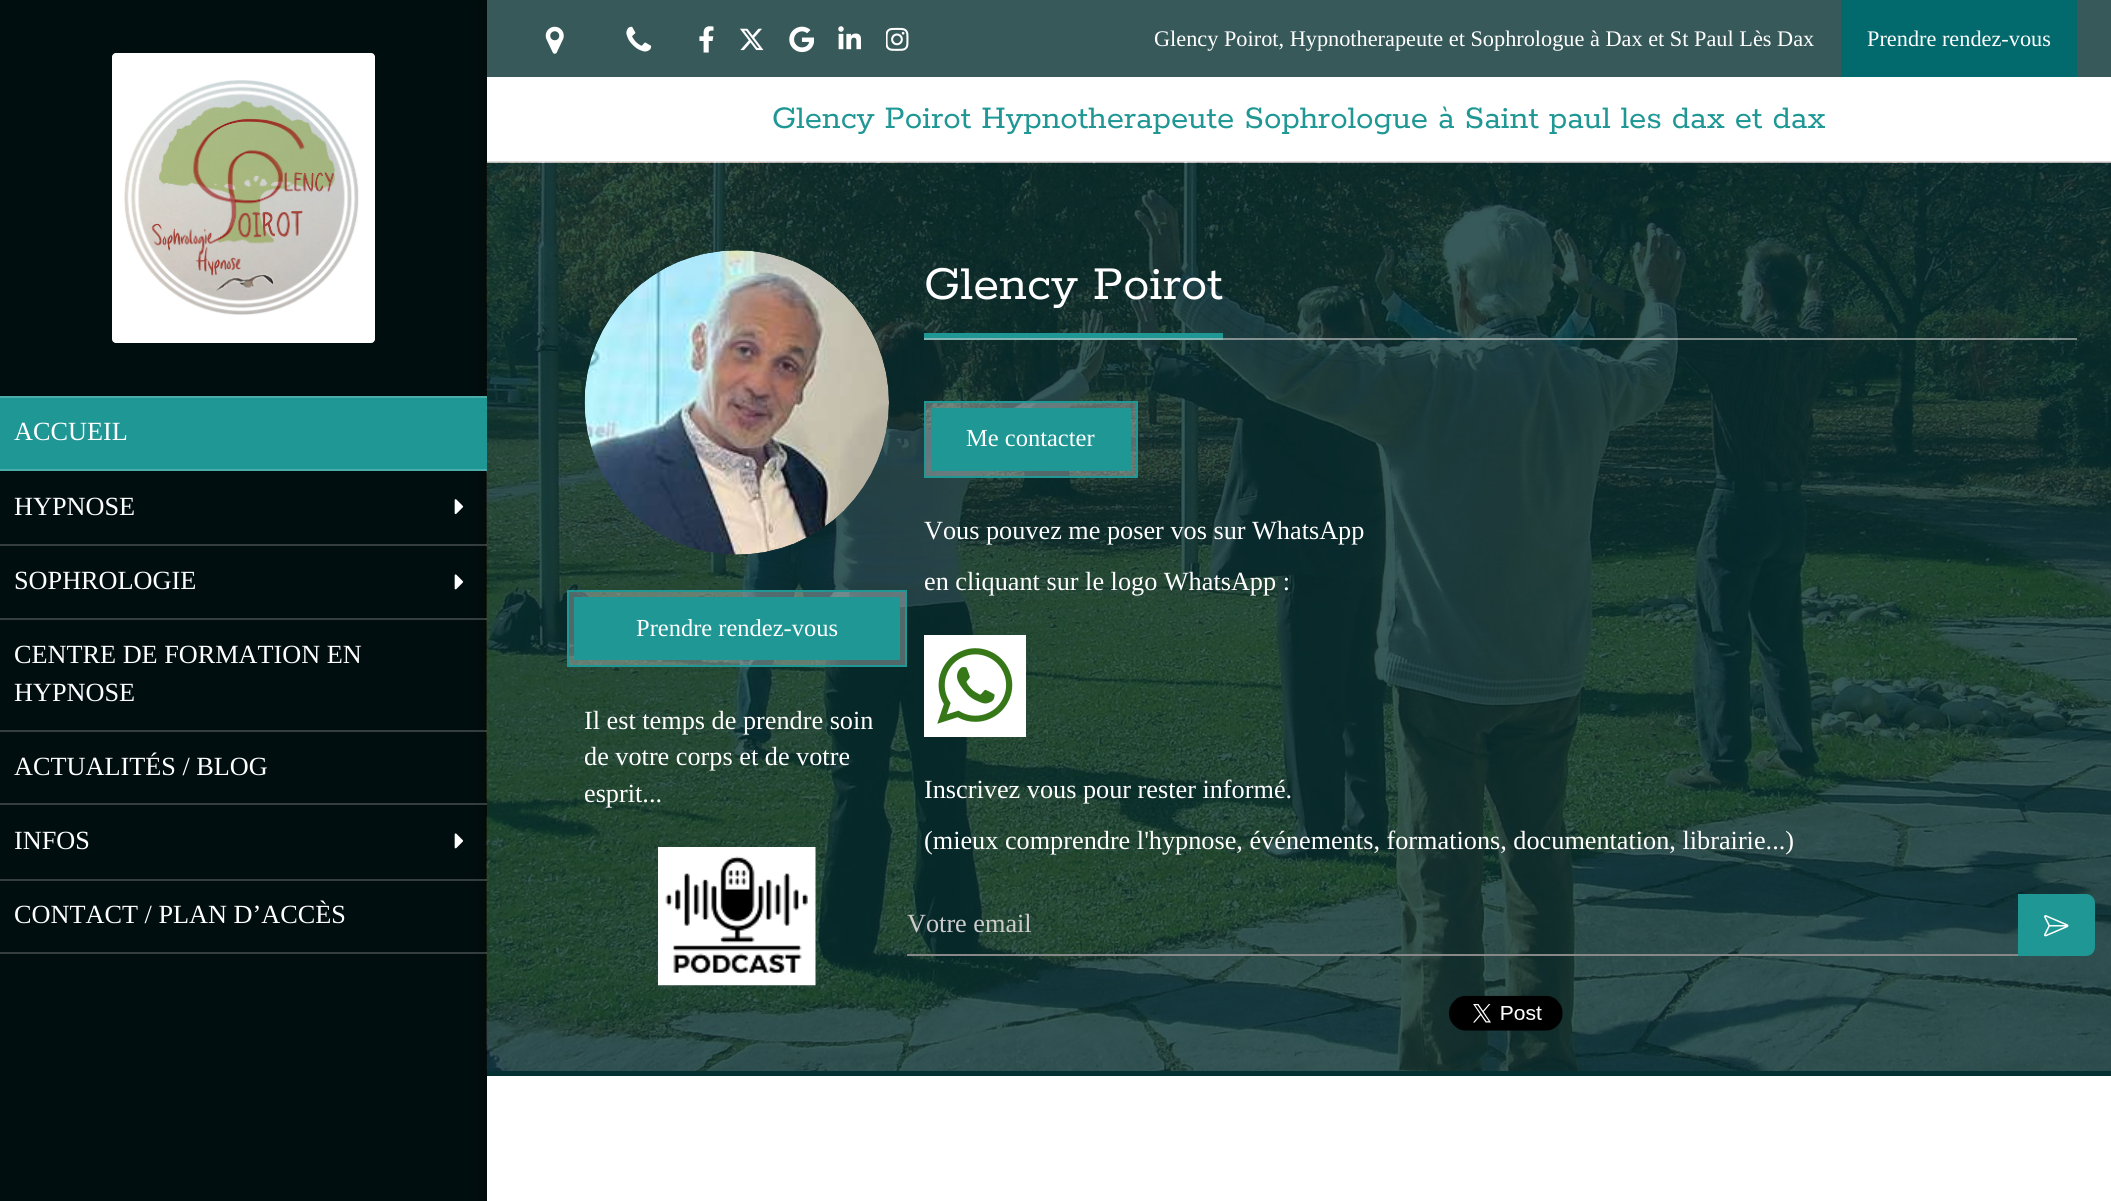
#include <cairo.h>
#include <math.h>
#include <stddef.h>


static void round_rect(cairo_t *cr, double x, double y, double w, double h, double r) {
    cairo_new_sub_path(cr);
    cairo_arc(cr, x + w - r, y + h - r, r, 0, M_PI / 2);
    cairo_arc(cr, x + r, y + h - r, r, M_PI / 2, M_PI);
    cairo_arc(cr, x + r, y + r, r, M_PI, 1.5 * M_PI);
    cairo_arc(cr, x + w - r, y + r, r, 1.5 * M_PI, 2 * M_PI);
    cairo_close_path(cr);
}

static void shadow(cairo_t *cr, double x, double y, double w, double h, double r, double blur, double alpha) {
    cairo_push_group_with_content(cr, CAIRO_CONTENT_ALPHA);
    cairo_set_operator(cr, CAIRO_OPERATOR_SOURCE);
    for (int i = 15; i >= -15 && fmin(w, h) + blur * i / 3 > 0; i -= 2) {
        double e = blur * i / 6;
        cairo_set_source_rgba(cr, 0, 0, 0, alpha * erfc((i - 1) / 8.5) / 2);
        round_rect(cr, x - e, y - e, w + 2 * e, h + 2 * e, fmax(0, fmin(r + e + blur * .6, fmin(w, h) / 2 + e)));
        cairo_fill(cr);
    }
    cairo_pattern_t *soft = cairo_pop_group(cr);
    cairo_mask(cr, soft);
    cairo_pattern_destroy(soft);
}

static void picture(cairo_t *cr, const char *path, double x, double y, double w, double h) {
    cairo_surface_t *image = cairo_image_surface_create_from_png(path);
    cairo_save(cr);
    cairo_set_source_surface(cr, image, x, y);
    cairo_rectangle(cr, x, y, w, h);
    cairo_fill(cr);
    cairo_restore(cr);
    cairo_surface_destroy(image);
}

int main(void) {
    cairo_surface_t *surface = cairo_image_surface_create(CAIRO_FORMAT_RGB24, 2111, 1201);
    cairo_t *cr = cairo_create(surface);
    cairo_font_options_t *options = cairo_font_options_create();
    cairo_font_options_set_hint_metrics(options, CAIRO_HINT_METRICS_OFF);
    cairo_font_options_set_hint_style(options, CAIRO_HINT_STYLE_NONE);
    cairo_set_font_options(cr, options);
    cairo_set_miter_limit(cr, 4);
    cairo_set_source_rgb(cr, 0.02, 0.188, 0.192);
    cairo_paint(cr);
    cairo_set_source_rgb(cr, 0, 0, 0);
    shadow(cr, 487, 0, 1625, 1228, 0, 9, 0.5);
    cairo_set_source_rgb(cr, 1, 1, 1);
    cairo_rectangle(cr, 487, 77, 1624, 1124);
    cairo_fill(cr);
    cairo_set_source_rgb(cr, 0.867, 0.867, 0.867);
    cairo_rectangle(cr, 487, 161, 1624, 2);
    cairo_fill(cr);
    picture(cr, "img11.png", 486, 162, 1625, 909);
    cairo_set_source_rgba(cr, 0, 0, 0, 0.7);
    cairo_rectangle(cr, 0, 0, 487, 1201);
    cairo_fill(cr);
    cairo_set_source_rgb(cr, 1, 1, 1);
    round_rect(cr, 112, 53, 263, 290, 4);
    cairo_fill(cr);
    picture(cr, "img1.png", 124, 80, 235, 235);
    cairo_set_source_rgb(cr, 0.118, 0.592, 0.584);
    cairo_rectangle(cr, 0, 398, 487, 71);
    cairo_fill(cr);
    cairo_set_source_rgb(cr, 0.294, 0.675, 0.667);
    cairo_rectangle(cr, 0, 396, 487, 2);
    cairo_fill(cr);
    cairo_rectangle(cr, 0, 469, 487, 2);
    cairo_fill(cr);
    cairo_select_font_face(cr, "Liberation Serif", CAIRO_FONT_SLANT_NORMAL, CAIRO_FONT_WEIGHT_NORMAL);
    cairo_set_font_size(cr, 26.25);
    cairo_set_source_rgb(cr, 1, 1, 1);
    cairo_move_to(cr, 14, 440);
    cairo_show_text(cr, "ACCUEIL");
    cairo_set_source_rgba(cr, 1, 1, 1, 0.2);
    cairo_rectangle(cr, 0, 544, 487, 2);
    cairo_fill(cr);
    cairo_set_source_rgb(cr, 1, 1, 1);
    cairo_move_to(cr, 14, 515);
    cairo_show_text(cr, "HYPNOSE");
    picture(cr, "img2.png", 454, 499, 10, 16);
    cairo_set_source_rgba(cr, 1, 1, 1, 0.2);
    cairo_rectangle(cr, 0, 618, 487, 2);
    cairo_fill(cr);
    cairo_set_source_rgb(cr, 1, 1, 1);
    cairo_move_to(cr, 14, 589);
    cairo_show_text(cr, "SOPHROLOGIE");
    picture(cr, "img3.png", 454, 574, 10, 16);
    cairo_set_source_rgba(cr, 1, 1, 1, 0.2);
    cairo_rectangle(cr, 0, 730, 487, 2);
    cairo_fill(cr);
    cairo_set_source_rgb(cr, 1, 1, 1);
    cairo_move_to(cr, 14, 663);
    cairo_show_text(cr, "CENTRE DE FORMATION EN");
    cairo_move_to(cr, 14, 701);
    cairo_show_text(cr, "HYPNOSE");
    cairo_set_source_rgba(cr, 1, 1, 1, 0.2);
    cairo_rectangle(cr, 0, 803, 487, 2);
    cairo_fill(cr);
    cairo_set_source_rgb(cr, 1, 1, 1);
    cairo_move_to(cr, 14, 775);
    cairo_show_text(cr, "ACTUALITÉS / BLOG");
    cairo_set_source_rgba(cr, 1, 1, 1, 0.2);
    cairo_rectangle(cr, 0, 879, 487, 2);
    cairo_fill(cr);
    cairo_set_source_rgb(cr, 1, 1, 1);
    cairo_move_to(cr, 14, 849);
    cairo_show_text(cr, "INFOS");
    picture(cr, "img3.png", 454, 833, 10, 16);
    cairo_set_source_rgba(cr, 1, 1, 1, 0.2);
    cairo_rectangle(cr, 0, 952, 487, 2);
    cairo_fill(cr);
    cairo_set_source_rgb(cr, 1, 1, 1);
    cairo_move_to(cr, 14, 923);
    cairo_show_text(cr, "CONTACT / PLAN D’ACCÈS");
    cairo_set_source_rgb(cr, 0.216, 0.349, 0.353);
    cairo_rectangle(cr, 487, 0, 1624, 77);
    cairo_fill(cr);
    picture(cr, "img4.png", 545, 26, 19, 28);
    picture(cr, "img5.png", 626, 26, 26, 26);
    picture(cr, "img6.png", 699, 26, 15, 27);
    picture(cr, "img7.png", 740, 28, 24, 23);
    picture(cr, "img8.png", 789, 26, 25, 27);
    picture(cr, "img9.png", 838, 26, 23, 24);
    picture(cr, "img10.png", 886, 27, 23, 24);
    cairo_set_font_size(cr, 22.3);
    cairo_set_source_rgb(cr, 1, 1, 1);
    cairo_move_to(cr, 1154, 46);
    cairo_show_text(cr, "Glency Poirot, Hypnotherapeute et Sophrologue à Dax et St Paul Lès Dax");
    cairo_set_source_rgb(cr, 0.008, 0.416, 0.427);
    cairo_rectangle(cr, 1841, 0, 236, 77);
    cairo_fill(cr);
    cairo_set_source_rgb(cr, 1, 1, 1);
    cairo_move_to(cr, 1867, 46);
    cairo_show_text(cr, "Prendre rendez-vous");
    cairo_select_font_face(cr, "Rokkitt", CAIRO_FONT_SLANT_NORMAL, CAIRO_FONT_WEIGHT_NORMAL);
    cairo_set_font_size(cr, 35);
    cairo_set_source_rgb(cr, 0.118, 0.592, 0.584);
    cairo_move_to(cr, 772, 128);
    cairo_show_text(cr, "Glency Poirot Hypnotherapeute Sophrologue à Saint paul les dax et dax");
    picture(cr, "img12.png", 584, 250, 305, 305);
    cairo_set_source_rgba(cr, 1, 1, 1, 0.3);
    cairo_rectangle(cr, 568, 591, 338, 75);
    cairo_fill_preserve(cr);
    cairo_set_source_rgb(cr, 0.118, 0.592, 0.584);
    cairo_stroke(cr);
    cairo_rectangle(cr, 574, 597, 326, 63);
    cairo_fill(cr);
    cairo_select_font_face(cr, "Liberation Serif", CAIRO_FONT_SLANT_NORMAL, CAIRO_FONT_WEIGHT_NORMAL);
    cairo_set_font_size(cr, 24.5);
    cairo_set_source_rgb(cr, 1, 1, 1);
    cairo_move_to(cr, 636, 636);
    cairo_show_text(cr, "Prendre rendez-vous");
    cairo_set_font_size(cr, 26.25);
    cairo_move_to(cr, 584, 729);
    cairo_show_text(cr, "Il est temps de prendre soin");
    cairo_move_to(cr, 584, 765);
    cairo_show_text(cr, "de votre corps et de votre");
    cairo_move_to(cr, 584, 802);
    cairo_show_text(cr, "esprit...");
    picture(cr, "img13.png", 658, 847, 158, 139);
    cairo_set_source_rgb(cr, 0.118, 0.592, 0.584);
    cairo_rectangle(cr, 924, 333, 299, 7);
    cairo_fill(cr);
    cairo_select_font_face(cr, "Rokkitt", CAIRO_FONT_SLANT_NORMAL, CAIRO_FONT_WEIGHT_NORMAL);
    cairo_set_font_size(cr, 52.5);
    cairo_set_source_rgb(cr, 1, 1, 1);
    cairo_move_to(cr, 924, 299);
    cairo_show_text(cr, "Glency Poirot");
    cairo_set_source_rgba(cr, 0.784, 0.784, 0.784, 0.6);
    cairo_rectangle(cr, 924, 338, 1153, 2);
    cairo_fill(cr);
    cairo_set_source_rgba(cr, 1, 1, 1, 0.3);
    cairo_rectangle(cr, 925, 402, 212, 75);
    cairo_fill_preserve(cr);
    cairo_set_source_rgb(cr, 0.118, 0.592, 0.584);
    cairo_stroke(cr);
    cairo_rectangle(cr, 931, 408, 200, 63);
    cairo_fill(cr);
    cairo_select_font_face(cr, "Liberation Serif", CAIRO_FONT_SLANT_NORMAL, CAIRO_FONT_WEIGHT_NORMAL);
    cairo_set_font_size(cr, 24.5);
    cairo_set_source_rgb(cr, 1, 1, 1);
    cairo_move_to(cr, 966, 446);
    cairo_show_text(cr, "Me contacter");
    cairo_set_font_size(cr, 26.25);
    cairo_move_to(cr, 924, 539);
    cairo_show_text(cr, "Vous pouvez me poser vos sur WhatsApp");
    cairo_move_to(cr, 924, 590);
    cairo_show_text(cr, "en cliquant sur le logo WhatsApp :");
    cairo_rectangle(cr, 924, 635, 102, 102);
    cairo_fill(cr);
    picture(cr, "img14.png", 937, 648, 76, 76);
    cairo_move_to(cr, 924, 798);
    cairo_show_text(cr, "Inscrivez vous pour rester informé.");
    cairo_move_to(cr, 924, 849);
    cairo_show_text(cr, "(mieux comprendre l'hypnose, événements, formations, documentation, librairie...)");
    cairo_set_source_rgb(cr, 0.533, 0.533, 0.533);
    cairo_rectangle(cr, 907, 954, 1113, 2);
    cairo_fill(cr);
    cairo_set_source_rgb(cr, 0.8, 0.8, 0.8);
    cairo_move_to(cr, 907, 932);
    cairo_show_text(cr, "Votre email");
    cairo_set_source_rgb(cr, 0.118, 0.592, 0.584);
    cairo_new_path(cr);
    cairo_move_to(cr, 2018, 894);
    cairo_line_to(cr, 2086, 894);
    cairo_curve_to(cr, 2091, 894, 2095, 898, 2095, 903);
    cairo_line_to(cr, 2095, 947);
    cairo_curve_to(cr, 2095, 952, 2091, 956, 2086, 956);
    cairo_line_to(cr, 2018, 956);
    cairo_close_path(cr);
    cairo_fill(cr);
    picture(cr, "img15.png", 2044, 915, 25, 22);
    picture(cr, "img16.png", 1449, 995, 114, 36);
    cairo_set_source_rgb(cr, 0.02, 0.188, 0.192);
    cairo_rectangle(cr, 487, 1071, 1624, 5);
    cairo_fill(cr);
    cairo_surface_write_to_png(surface, "page.png");
    cairo_font_options_destroy(options);
    cairo_destroy(cr);
    cairo_surface_destroy(surface);
    return 0;
}
